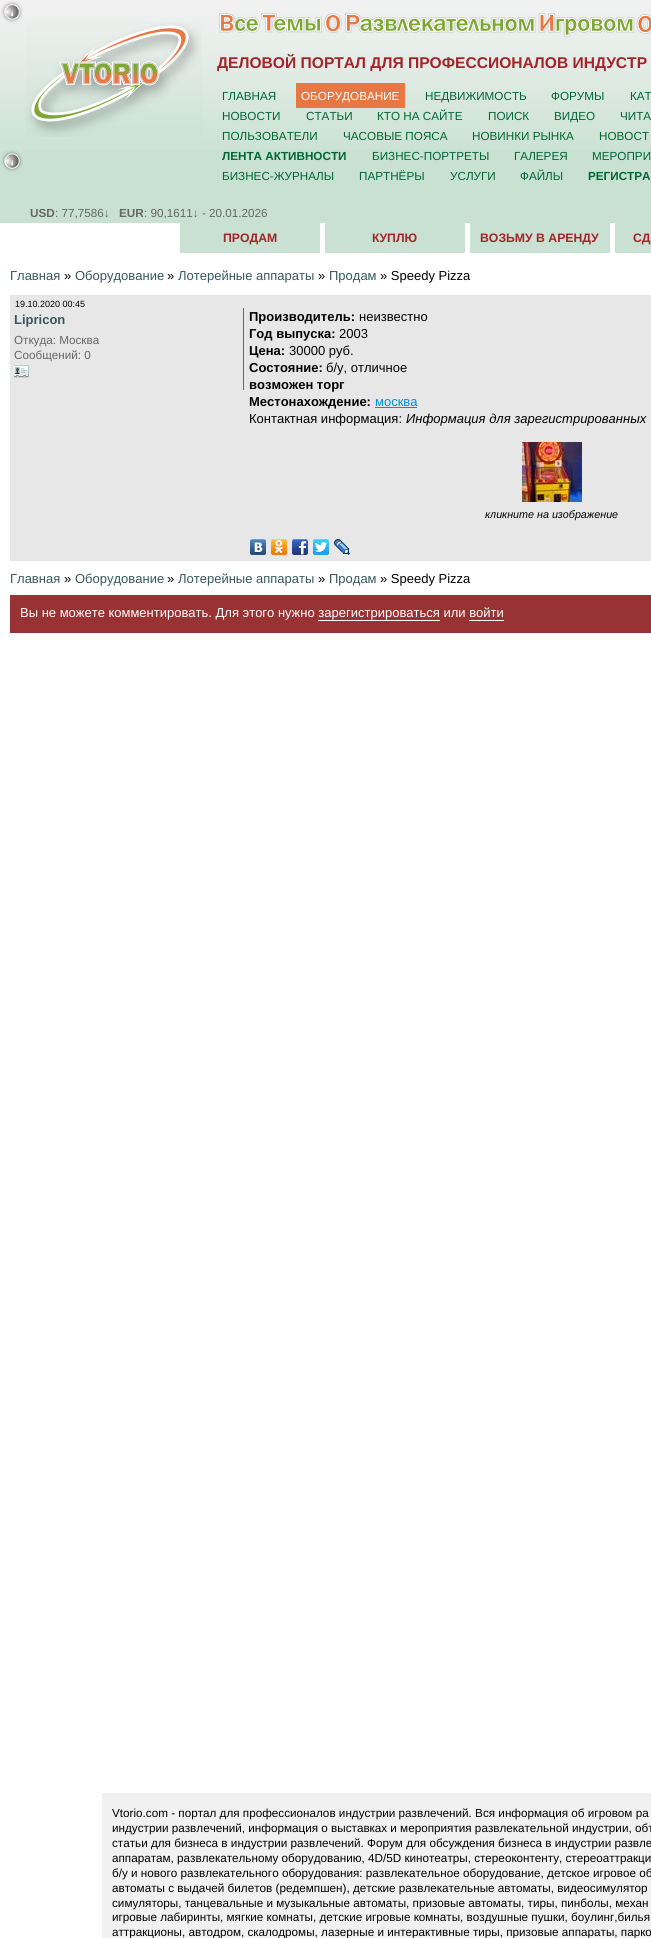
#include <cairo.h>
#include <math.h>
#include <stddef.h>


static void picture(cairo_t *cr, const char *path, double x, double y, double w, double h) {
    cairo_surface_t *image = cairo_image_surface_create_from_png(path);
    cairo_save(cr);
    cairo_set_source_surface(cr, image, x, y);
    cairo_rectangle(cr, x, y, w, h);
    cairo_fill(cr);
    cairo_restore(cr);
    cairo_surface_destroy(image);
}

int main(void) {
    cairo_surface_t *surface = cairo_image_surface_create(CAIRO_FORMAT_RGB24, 651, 1938);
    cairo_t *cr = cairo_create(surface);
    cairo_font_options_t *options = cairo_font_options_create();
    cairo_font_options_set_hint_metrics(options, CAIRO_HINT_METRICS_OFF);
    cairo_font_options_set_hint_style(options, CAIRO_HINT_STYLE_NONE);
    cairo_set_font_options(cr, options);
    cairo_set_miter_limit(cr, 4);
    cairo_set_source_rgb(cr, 1, 1, 1);
    cairo_paint(cr);
    cairo_set_source_rgb(cr, 0.784, 0.882, 0.824);
    cairo_rectangle(cr, 0, 149, 651, 74);
    cairo_fill(cr);
    picture(cr, "img1.png", 23, 0, 628, 149);
    picture(cr, "img2.png", 0, 0, 23, 174);
    picture(cr, "img3.png", 26, 21, 176, 116);
    picture(cr, "img4.png", 219, 13, 432, 24);
    cairo_select_font_face(cr, "Liberation Sans", CAIRO_FONT_SLANT_NORMAL, CAIRO_FONT_WEIGHT_BOLD);
    cairo_set_font_size(cr, 15.6);
    cairo_set_source_rgb(cr, 0.643, 0.141, 0.153);
    cairo_move_to(cr, 217, 68);
    cairo_show_text(cr, "ДЕЛОВОЙ ПОРТАЛ ДЛЯ ПРОФЕССИОНАЛОВ ИНДУСТР");
    cairo_select_font_face(cr, "Liberation Sans", CAIRO_FONT_SLANT_NORMAL, CAIRO_FONT_WEIGHT_NORMAL);
    cairo_set_font_size(cr, 11.7);
    cairo_set_source_rgb(cr, 0, 0.4, 0.2);
    cairo_move_to(cr, 222, 100);
    cairo_show_text(cr, "ГЛАВНАЯ");
    cairo_set_source_rgb(cr, 0.906, 0.471, 0.267);
    cairo_rectangle(cr, 296, 83, 109, 25);
    cairo_fill(cr);
    cairo_set_source_rgb(cr, 1, 1, 1);
    cairo_move_to(cr, 301, 100);
    cairo_show_text(cr, "ОБОРУДОВАНИЕ");
    cairo_set_source_rgb(cr, 0, 0.4, 0.2);
    cairo_move_to(cr, 425, 100);
    cairo_show_text(cr, "НЕДВИЖИМОСТЬ");
    cairo_move_to(cr, 551, 100);
    cairo_show_text(cr, "ФОРУМЫ");
    cairo_move_to(cr, 630, 100);
    cairo_show_text(cr, "КАТ");
    cairo_move_to(cr, 222, 120);
    cairo_show_text(cr, "НОВОСТИ");
    cairo_move_to(cr, 306, 120);
    cairo_show_text(cr, "СТАТЬИ");
    cairo_move_to(cr, 377, 120);
    cairo_show_text(cr, "КТО НА САЙТЕ");
    cairo_move_to(cr, 488, 120);
    cairo_show_text(cr, "ПОИСК");
    cairo_move_to(cr, 554, 120);
    cairo_show_text(cr, "ВИДЕО");
    cairo_move_to(cr, 620, 120);
    cairo_show_text(cr, "ЧИТА");
    cairo_move_to(cr, 222, 140);
    cairo_show_text(cr, "ПОЛЬЗОВАТЕЛИ");
    cairo_move_to(cr, 343, 140);
    cairo_show_text(cr, "ЧАСОВЫЕ ПОЯСА");
    cairo_move_to(cr, 472, 140);
    cairo_show_text(cr, "НОВИНКИ РЫНКА");
    cairo_move_to(cr, 599, 140);
    cairo_show_text(cr, "НОВОСТ");
    cairo_select_font_face(cr, "Liberation Sans", CAIRO_FONT_SLANT_NORMAL, CAIRO_FONT_WEIGHT_BOLD);
    cairo_move_to(cr, 222, 160);
    cairo_show_text(cr, "ЛЕНТА АКТИВНОСТИ");
    cairo_select_font_face(cr, "Liberation Sans", CAIRO_FONT_SLANT_NORMAL, CAIRO_FONT_WEIGHT_NORMAL);
    cairo_move_to(cr, 372, 160);
    cairo_show_text(cr, "БИЗНЕС-ПОРТРЕТЫ");
    cairo_move_to(cr, 514, 160);
    cairo_show_text(cr, "ГАЛЕРЕЯ");
    cairo_move_to(cr, 592, 160);
    cairo_show_text(cr, "МЕРОПРИ");
    cairo_move_to(cr, 222, 180);
    cairo_show_text(cr, "БИЗНЕС-ЖУРНАЛЫ");
    cairo_move_to(cr, 359, 180);
    cairo_show_text(cr, "ПАРТНЁРЫ");
    cairo_move_to(cr, 450, 180);
    cairo_show_text(cr, "УСЛУГИ");
    cairo_move_to(cr, 520, 180);
    cairo_show_text(cr, "ФАЙЛЫ");
    cairo_select_font_face(cr, "Liberation Sans", CAIRO_FONT_SLANT_NORMAL, CAIRO_FONT_WEIGHT_BOLD);
    cairo_move_to(cr, 588, 180);
    cairo_show_text(cr, "РЕГИСТРА");
    cairo_set_source_rgb(cr, 0.4, 0.4, 0.4);
    cairo_move_to(cr, 30, 217);
    cairo_show_text(cr, "USD");
    cairo_select_font_face(cr, "Liberation Sans", CAIRO_FONT_SLANT_NORMAL, CAIRO_FONT_WEIGHT_NORMAL);
    cairo_move_to(cr, 55, 217);
    cairo_show_text(cr, ": 77,7586↓");
    cairo_select_font_face(cr, "Liberation Sans", CAIRO_FONT_SLANT_NORMAL, CAIRO_FONT_WEIGHT_BOLD);
    cairo_move_to(cr, 119, 217);
    cairo_show_text(cr, "EUR");
    cairo_select_font_face(cr, "Liberation Sans", CAIRO_FONT_SLANT_NORMAL, CAIRO_FONT_WEIGHT_NORMAL);
    cairo_move_to(cr, 144, 217);
    cairo_show_text(cr, ": 90,1611↓ - 20.01.2026");
    cairo_set_source_rgb(cr, 0.784, 0.882, 0.824);
    cairo_rectangle(cr, 180, 223, 140, 30);
    cairo_fill(cr);
    cairo_select_font_face(cr, "Liberation Sans", CAIRO_FONT_SLANT_NORMAL, CAIRO_FONT_WEIGHT_BOLD);
    cairo_set_font_size(cr, 12.25);
    cairo_set_source_rgb(cr, 0.643, 0.141, 0.153);
    cairo_move_to(cr, 223, 242);
    cairo_show_text(cr, "ПРОДАМ");
    cairo_set_source_rgb(cr, 0.784, 0.882, 0.824);
    cairo_rectangle(cr, 325, 223, 140, 30);
    cairo_fill(cr);
    cairo_set_source_rgb(cr, 0.643, 0.141, 0.153);
    cairo_move_to(cr, 372, 242);
    cairo_show_text(cr, "КУПЛЮ");
    cairo_set_source_rgb(cr, 0.784, 0.882, 0.824);
    cairo_rectangle(cr, 470, 223, 140, 30);
    cairo_fill(cr);
    cairo_set_source_rgb(cr, 0.643, 0.141, 0.153);
    cairo_move_to(cr, 480, 242);
    cairo_show_text(cr, "ВОЗЬМУ В АРЕНДУ");
    cairo_set_source_rgb(cr, 0.784, 0.882, 0.824);
    cairo_rectangle(cr, 615, 223, 36, 30);
    cairo_fill(cr);
    cairo_set_source_rgb(cr, 0.643, 0.141, 0.153);
    cairo_move_to(cr, 633, 242);
    cairo_show_text(cr, "СД");
    cairo_select_font_face(cr, "Liberation Sans", CAIRO_FONT_SLANT_NORMAL, CAIRO_FONT_WEIGHT_NORMAL);
    cairo_set_font_size(cr, 13);
    cairo_set_source_rgb(cr, 0.208, 0.345, 0.369);
    cairo_move_to(cr, 10, 280);
    cairo_show_text(cr, "Главная");
    cairo_set_source_rgb(cr, 0, 0, 0);
    cairo_move_to(cr, 64, 280);
    cairo_show_text(cr, "»");
    cairo_set_source_rgb(cr, 0.208, 0.345, 0.369);
    cairo_move_to(cr, 75, 280);
    cairo_show_text(cr, "Оборудование");
    cairo_set_source_rgb(cr, 0, 0, 0);
    cairo_move_to(cr, 167, 280);
    cairo_show_text(cr, "»");
    cairo_set_source_rgb(cr, 0.208, 0.345, 0.369);
    cairo_move_to(cr, 178, 280);
    cairo_show_text(cr, "Лотерейные аппараты");
    cairo_set_source_rgb(cr, 0, 0, 0);
    cairo_move_to(cr, 318, 280);
    cairo_show_text(cr, "»");
    cairo_set_source_rgb(cr, 0.208, 0.345, 0.369);
    cairo_move_to(cr, 329, 280);
    cairo_show_text(cr, "Продам");
    cairo_set_source_rgb(cr, 0, 0, 0);
    cairo_move_to(cr, 380, 280);
    cairo_show_text(cr, "» Speedy Pizza");
    cairo_set_source_rgb(cr, 0.906, 0.906, 0.906);
    cairo_rectangle(cr, 10, 295, 641, 266);
    cairo_fill(cr);
    cairo_set_font_size(cr, 9);
    cairo_set_source_rgb(cr, 0, 0, 0);
    cairo_move_to(cr, 15, 307);
    cairo_show_text(cr, "19.10.2020 00:45");
    cairo_set_source_rgb(cr, 0.4, 0.4, 0.4);
    cairo_rectangle(cr, 243, 308, 1, 82);
    cairo_fill(cr);
    cairo_select_font_face(cr, "Liberation Sans", CAIRO_FONT_SLANT_NORMAL, CAIRO_FONT_WEIGHT_BOLD);
    cairo_set_font_size(cr, 13);
    cairo_set_source_rgb(cr, 0.208, 0.345, 0.369);
    cairo_move_to(cr, 14, 324);
    cairo_show_text(cr, "Lipricon");
    cairo_select_font_face(cr, "Liberation Sans", CAIRO_FONT_SLANT_NORMAL, CAIRO_FONT_WEIGHT_NORMAL);
    cairo_set_font_size(cr, 11.7);
    cairo_set_source_rgb(cr, 0.4, 0.4, 0.4);
    cairo_move_to(cr, 14, 344);
    cairo_show_text(cr, "Откуда: Москва");
    cairo_move_to(cr, 14, 359);
    cairo_show_text(cr, "Сообщений: 0");
    picture(cr, "img5.png", 14, 363, 16, 16);
    cairo_select_font_face(cr, "Liberation Sans", CAIRO_FONT_SLANT_NORMAL, CAIRO_FONT_WEIGHT_BOLD);
    cairo_set_font_size(cr, 13);
    cairo_set_source_rgb(cr, 0, 0, 0);
    cairo_move_to(cr, 249, 321);
    cairo_show_text(cr, "Производитель:");
    cairo_select_font_face(cr, "Liberation Sans", CAIRO_FONT_SLANT_NORMAL, CAIRO_FONT_WEIGHT_NORMAL);
    cairo_move_to(cr, 359, 321);
    cairo_show_text(cr, "неизвестно");
    cairo_select_font_face(cr, "Liberation Sans", CAIRO_FONT_SLANT_NORMAL, CAIRO_FONT_WEIGHT_BOLD);
    cairo_move_to(cr, 249, 338);
    cairo_show_text(cr, "Год выпуска:");
    cairo_select_font_face(cr, "Liberation Sans", CAIRO_FONT_SLANT_NORMAL, CAIRO_FONT_WEIGHT_NORMAL);
    cairo_move_to(cr, 339, 338);
    cairo_show_text(cr, "2003");
    cairo_select_font_face(cr, "Liberation Sans", CAIRO_FONT_SLANT_NORMAL, CAIRO_FONT_WEIGHT_BOLD);
    cairo_move_to(cr, 249, 355);
    cairo_show_text(cr, "Цена:");
    cairo_select_font_face(cr, "Liberation Sans", CAIRO_FONT_SLANT_NORMAL, CAIRO_FONT_WEIGHT_NORMAL);
    cairo_move_to(cr, 289, 355);
    cairo_show_text(cr, "30000 руб.");
    cairo_select_font_face(cr, "Liberation Sans", CAIRO_FONT_SLANT_NORMAL, CAIRO_FONT_WEIGHT_BOLD);
    cairo_move_to(cr, 249, 372);
    cairo_show_text(cr, "Состояние:");
    cairo_select_font_face(cr, "Liberation Sans", CAIRO_FONT_SLANT_NORMAL, CAIRO_FONT_WEIGHT_NORMAL);
    cairo_move_to(cr, 326, 372);
    cairo_show_text(cr, "б/у, отличное");
    cairo_select_font_face(cr, "Liberation Sans", CAIRO_FONT_SLANT_NORMAL, CAIRO_FONT_WEIGHT_BOLD);
    cairo_move_to(cr, 249, 389);
    cairo_show_text(cr, "возможен торг");
    cairo_move_to(cr, 249, 406);
    cairo_show_text(cr, "Местонахождение:");
    cairo_select_font_face(cr, "Liberation Sans", CAIRO_FONT_SLANT_NORMAL, CAIRO_FONT_WEIGHT_NORMAL);
    cairo_set_source_rgb(cr, 0, 0.561, 0.816);
    cairo_move_to(cr, 375, 406);
    cairo_show_text(cr, "москва");
    cairo_rectangle(cr, 375, 407, 42, 1);
    cairo_fill(cr);
    cairo_set_source_rgb(cr, 0, 0, 0);
    cairo_move_to(cr, 249, 423);
    cairo_show_text(cr, "Контактная информация:");
    cairo_select_font_face(cr, "Liberation Sans", CAIRO_FONT_SLANT_ITALIC, CAIRO_FONT_WEIGHT_NORMAL);
    cairo_move_to(cr, 406, 423);
    cairo_show_text(cr, "Информация для зарегистрированных");
    picture(cr, "img6.png", 522, 442, 60, 60);
    cairo_set_font_size(cr, 10.75);
    cairo_move_to(cr, 485, 518);
    cairo_show_text(cr, "кликните на изображение");
    picture(cr, "img7.png", 250, 539, 16, 16);
    picture(cr, "img8.png", 271, 539, 16, 16);
    picture(cr, "img9.png", 292, 539, 16, 16);
    picture(cr, "img10.png", 313, 539, 16, 16);
    picture(cr, "img11.png", 334, 539, 16, 16);
    cairo_select_font_face(cr, "Liberation Sans", CAIRO_FONT_SLANT_NORMAL, CAIRO_FONT_WEIGHT_NORMAL);
    cairo_set_font_size(cr, 13);
    cairo_set_source_rgb(cr, 0.208, 0.345, 0.369);
    cairo_move_to(cr, 10, 583);
    cairo_show_text(cr, "Главная");
    cairo_set_source_rgb(cr, 0, 0, 0);
    cairo_move_to(cr, 64, 583);
    cairo_show_text(cr, "»");
    cairo_set_source_rgb(cr, 0.208, 0.345, 0.369);
    cairo_move_to(cr, 75, 583);
    cairo_show_text(cr, "Оборудование");
    cairo_set_source_rgb(cr, 0, 0, 0);
    cairo_move_to(cr, 167, 583);
    cairo_show_text(cr, "»");
    cairo_set_source_rgb(cr, 0.208, 0.345, 0.369);
    cairo_move_to(cr, 178, 583);
    cairo_show_text(cr, "Лотерейные аппараты");
    cairo_set_source_rgb(cr, 0, 0, 0);
    cairo_move_to(cr, 318, 583);
    cairo_show_text(cr, "»");
    cairo_set_source_rgb(cr, 0.208, 0.345, 0.369);
    cairo_move_to(cr, 329, 583);
    cairo_show_text(cr, "Продам");
    cairo_set_source_rgb(cr, 0, 0, 0);
    cairo_move_to(cr, 380, 583);
    cairo_show_text(cr, "» Speedy Pizza");
    cairo_set_source_rgb(cr, 0.6, 0.2, 0.2);
    cairo_rectangle(cr, 10, 595, 641, 38);
    cairo_fill(cr);
    cairo_set_source_rgb(cr, 1, 1, 1);
    cairo_move_to(cr, 20, 617);
    cairo_show_text(cr, "Вы не можете комментировать. Для этого нужно зарегистрироваться или войти");
    cairo_rectangle(cr, 318, 620, 122, 1);
    cairo_fill(cr);
    cairo_rectangle(cr, 469, 620, 35, 1);
    cairo_fill(cr);
    cairo_set_source_rgb(cr, 0.945, 0.945, 0.945);
    cairo_rectangle(cr, 102, 1793, 549, 145);
    cairo_fill(cr);
    cairo_set_font_size(cr, 11.7);
    cairo_set_source_rgb(cr, 0, 0, 0);
    cairo_move_to(cr, 112, 1817);
    cairo_show_text(cr, "Vtorio.com - портал для профессионалов индустрии развлечений. Вся информация об игровом ра");
    cairo_move_to(cr, 112, 1832);
    cairo_show_text(cr, "индустрии развлечений, информация о выставках и мероприятия развлекательной индустрии, объ");
    cairo_move_to(cr, 112, 1847);
    cairo_show_text(cr, "статьи для бизнеса в индустрии развлечений. Форум для обсуждения бизнеса в индустрии развле");
    cairo_move_to(cr, 112, 1862);
    cairo_show_text(cr, "аппаратам, развлекательному оборудованию, 4D/5D кинотеатры, стереоконтенту, стереоаттракци");
    cairo_move_to(cr, 112, 1877);
    cairo_show_text(cr, "б/у и нового развлекательного оборудования: развлекательное оборудование, детское игровое об");
    cairo_move_to(cr, 112, 1892);
    cairo_show_text(cr, "автоматы с выдачей билетов (редемпшен), детские развлекательные автоматы, видеосимулятор");
    cairo_move_to(cr, 112, 1907);
    cairo_show_text(cr, "симуляторы, танцевальные и музыкальные автоматы, призовые автоматы, тиры, пинболы, механ");
    cairo_move_to(cr, 112, 1921);
    cairo_show_text(cr, "игровые лабиринты, мягкие комнаты, детские игровые комнаты, воздушные пушки, боулинг,билья");
    cairo_move_to(cr, 112, 1936);
    cairo_show_text(cr, "аттракционы, автодром, скалодромы, лазерные и интерактивные тиры, призовые аппараты, парко");
    cairo_surface_write_to_png(surface, "page.png");
    cairo_font_options_destroy(options);
    cairo_destroy(cr);
    cairo_surface_destroy(surface);
    return 0;
}
